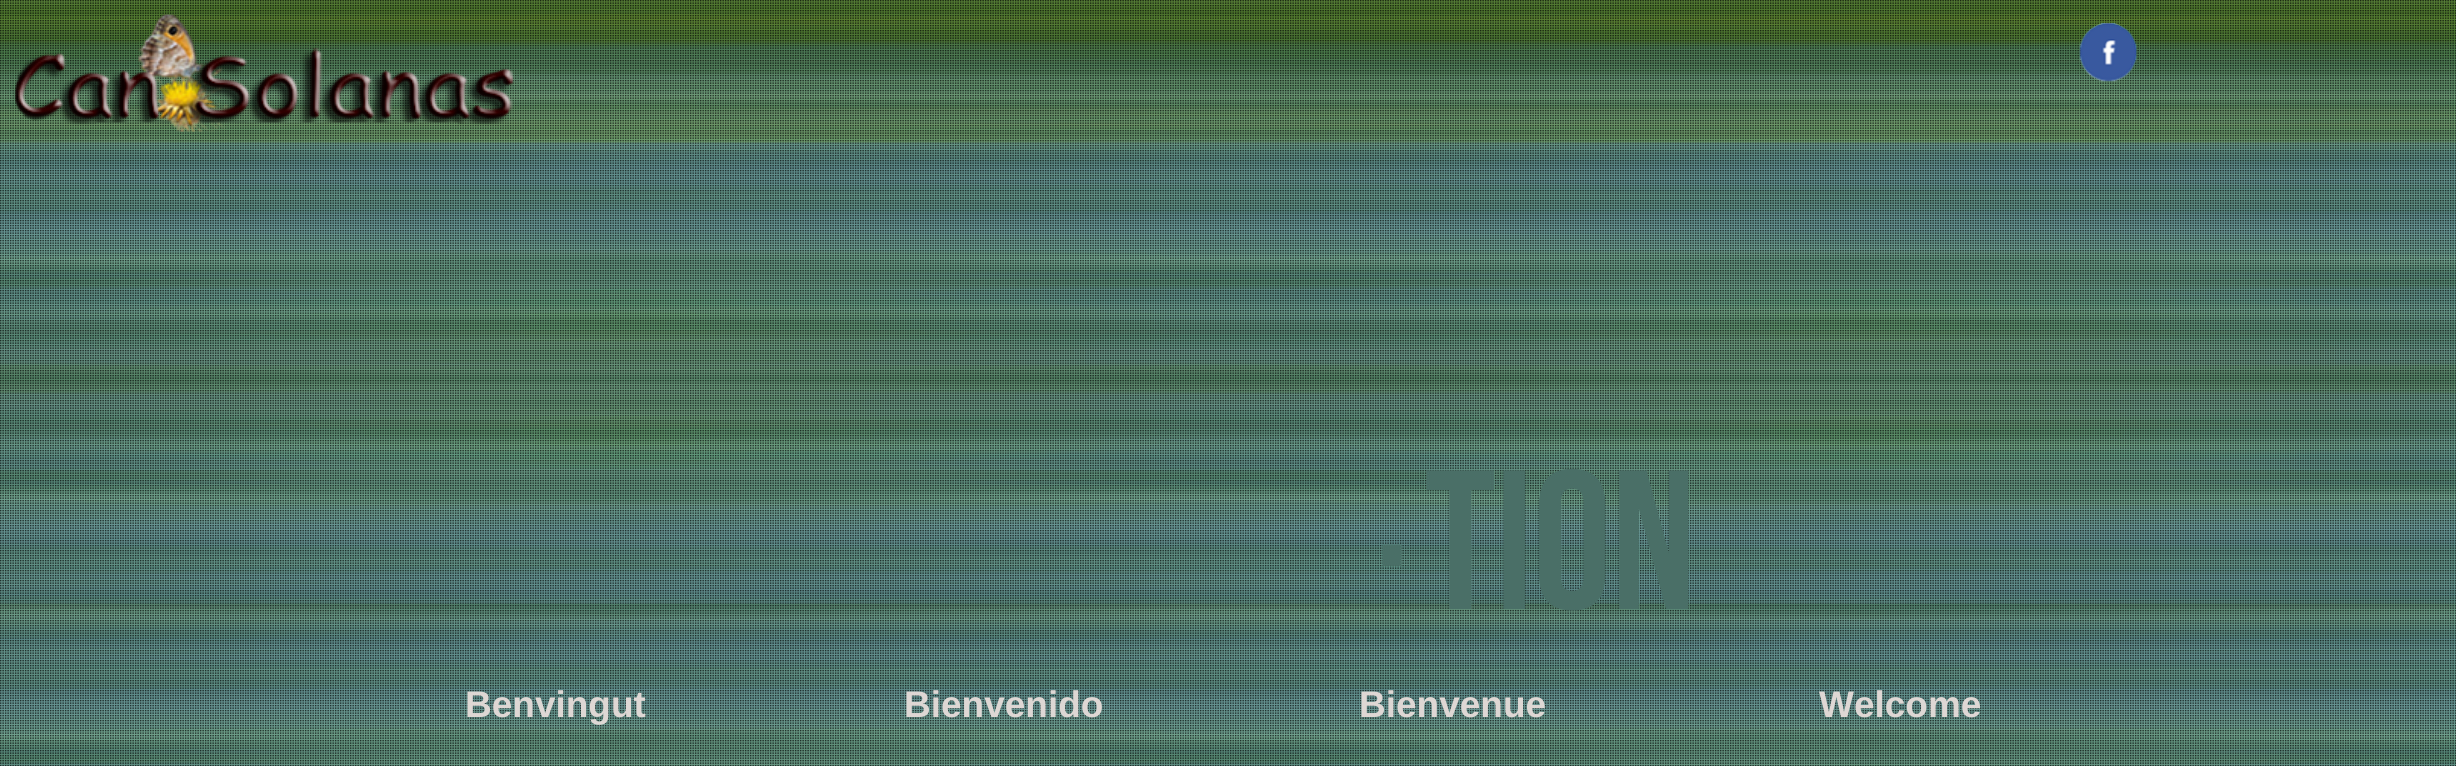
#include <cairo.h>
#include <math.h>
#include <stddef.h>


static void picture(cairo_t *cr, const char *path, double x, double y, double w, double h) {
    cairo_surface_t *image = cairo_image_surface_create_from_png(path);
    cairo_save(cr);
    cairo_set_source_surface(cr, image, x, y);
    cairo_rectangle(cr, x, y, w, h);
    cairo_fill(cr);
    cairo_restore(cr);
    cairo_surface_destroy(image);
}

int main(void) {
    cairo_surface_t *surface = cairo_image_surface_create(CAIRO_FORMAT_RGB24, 2456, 766);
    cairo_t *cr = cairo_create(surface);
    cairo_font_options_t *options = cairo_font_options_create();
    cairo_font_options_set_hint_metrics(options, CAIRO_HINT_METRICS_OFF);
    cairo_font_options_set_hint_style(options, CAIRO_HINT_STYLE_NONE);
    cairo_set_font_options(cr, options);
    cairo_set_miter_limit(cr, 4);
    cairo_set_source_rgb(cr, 1, 1, 1);
    cairo_paint(cr);
    picture(cr, "img1.png", 0, 0, 2456, 766);
    picture(cr, "img2.png", 0, 0, 2456, 766);
    cairo_select_font_face(cr, "Liberation Sans", CAIRO_FONT_SLANT_NORMAL, CAIRO_FONT_WEIGHT_NORMAL);
    cairo_set_font_size(cr, 198);
    cairo_set_source_rgb(cr, 0.29, 0.435, 0.404);
    cairo_move_to(cr, 1359, 609);
    cairo_show_text(cr, "·");
    cairo_select_font_face(cr, "Bebas Neue", CAIRO_FONT_SLANT_NORMAL, CAIRO_FONT_WEIGHT_NORMAL);
    cairo_move_to(cr, 1425, 609);
    cairo_show_text(cr, "tion");
    picture(cr, "img3.png", 13, 14, 502, 118);
    picture(cr, "img4.png", 2079, 23, 58, 59);
    cairo_select_font_face(cr, "Liberation Sans", CAIRO_FONT_SLANT_NORMAL, CAIRO_FONT_WEIGHT_BOLD);
    cairo_set_font_size(cr, 37);
    cairo_set_source_rgb(cr, 0.871, 0.843, 0.831);
    cairo_move_to(cr, 465, 717);
    cairo_show_text(cr, "Benvingut");
    cairo_move_to(cr, 904, 717);
    cairo_show_text(cr, "Bienvenido");
    cairo_move_to(cr, 1359, 717);
    cairo_show_text(cr, "Bienvenue");
    cairo_move_to(cr, 1819, 717);
    cairo_show_text(cr, "Welcome");
    cairo_surface_write_to_png(surface, "page.png");
    cairo_font_options_destroy(options);
    cairo_destroy(cr);
    cairo_surface_destroy(surface);
    return 0;
}
